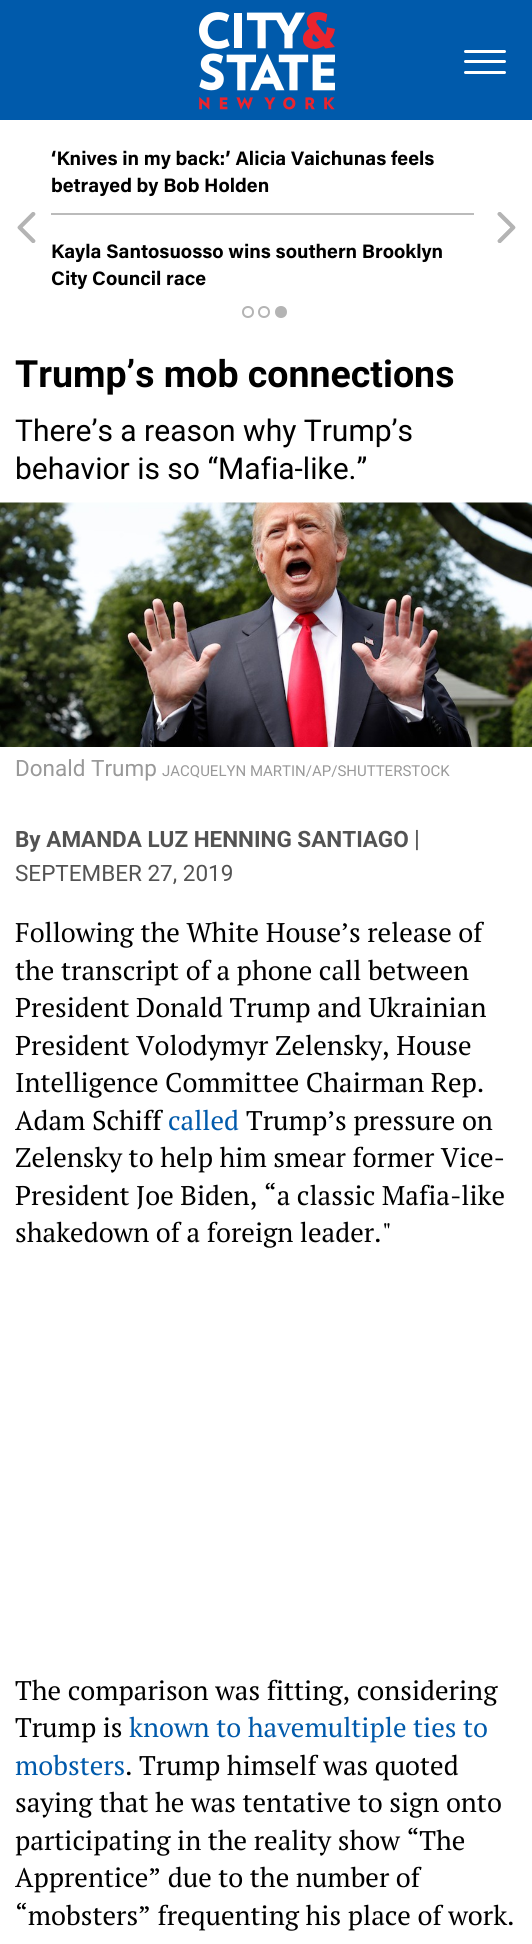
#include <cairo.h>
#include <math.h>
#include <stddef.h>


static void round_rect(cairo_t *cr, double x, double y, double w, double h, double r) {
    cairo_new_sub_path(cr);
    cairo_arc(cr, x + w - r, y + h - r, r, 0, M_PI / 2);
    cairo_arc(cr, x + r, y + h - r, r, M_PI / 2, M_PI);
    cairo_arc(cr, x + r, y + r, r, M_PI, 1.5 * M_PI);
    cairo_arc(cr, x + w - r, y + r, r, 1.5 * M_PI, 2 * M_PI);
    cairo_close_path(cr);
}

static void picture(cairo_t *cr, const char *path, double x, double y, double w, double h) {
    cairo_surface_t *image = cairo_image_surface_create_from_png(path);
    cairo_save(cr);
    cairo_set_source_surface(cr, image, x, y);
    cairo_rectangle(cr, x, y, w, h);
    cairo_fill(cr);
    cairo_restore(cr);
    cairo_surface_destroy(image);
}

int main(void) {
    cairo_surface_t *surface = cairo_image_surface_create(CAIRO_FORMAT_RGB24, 532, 1944);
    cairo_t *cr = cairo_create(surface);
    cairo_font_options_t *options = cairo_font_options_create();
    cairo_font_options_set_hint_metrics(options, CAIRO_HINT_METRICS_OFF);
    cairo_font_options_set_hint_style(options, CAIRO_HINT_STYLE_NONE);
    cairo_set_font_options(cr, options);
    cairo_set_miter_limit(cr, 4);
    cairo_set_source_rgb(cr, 1, 1, 1);
    cairo_paint(cr);
    cairo_set_source_rgb(cr, 0, 0.353, 0.671);
    cairo_rectangle(cr, 0, 0, 532, 120);
    cairo_fill(cr);
    picture(cr, "img1.png", 199, 12, 136, 98);
    cairo_set_source_rgb(cr, 1, 1, 1);
    round_rect(cr, 464, 60, 42, 3, 1.5);
    cairo_fill(cr);
    round_rect(cr, 464, 50, 42, 3, 1.5);
    cairo_fill(cr);
    round_rect(cr, 464, 71, 42, 3, 1.5);
    cairo_fill(cr);
    picture(cr, "img2.png", 17, 212, 19, 31);
    cairo_select_font_face(cr, "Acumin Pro", CAIRO_FONT_SLANT_NORMAL, CAIRO_FONT_WEIGHT_BOLD);
    cairo_set_font_size(cr, 19.5);
    cairo_set_source_rgb(cr, 0, 0, 0);
    cairo_move_to(cr, 51, 165);
    cairo_show_text(cr, "‘Knives in my back:’ Alicia Vaichunas feels");
    cairo_move_to(cr, 51, 192);
    cairo_show_text(cr, "betrayed by Bob Holden");
    cairo_set_source_rgb(cr, 0.733, 0.733, 0.733);
    cairo_rectangle(cr, 51, 213, 423, 2);
    cairo_fill(cr);
    cairo_set_source_rgb(cr, 0, 0, 0);
    cairo_move_to(cr, 51, 258);
    cairo_show_text(cr, "Kayla Santosuosso wins southern Brooklyn");
    cairo_move_to(cr, 51, 285);
    cairo_show_text(cr, "City Council race");
    picture(cr, "img3.png", 497, 212, 19, 31);
    cairo_arc(cr, 248, 312, 5, 0, 2 * M_PI);
    cairo_set_source_rgb(cr, 0.706, 0.706, 0.706);
    cairo_stroke(cr);
    cairo_arc(cr, 264, 312, 5, 0, 2 * M_PI);
    cairo_stroke(cr);
    cairo_arc(cr, 281, 312, 5, 0, 2 * M_PI);
    cairo_fill_preserve(cr);
    cairo_stroke(cr);
    cairo_select_font_face(cr, "Roboto", CAIRO_FONT_SLANT_NORMAL, CAIRO_FONT_WEIGHT_BOLD);
    cairo_set_font_size(cr, 37.5);
    cairo_set_source_rgb(cr, 0, 0, 0);
    cairo_move_to(cr, 15, 387);
    cairo_show_text(cr, "Trump’s mob connections");
    cairo_select_font_face(cr, "Roboto", CAIRO_FONT_SLANT_NORMAL, CAIRO_FONT_WEIGHT_NORMAL);
    cairo_set_font_size(cr, 30);
    cairo_move_to(cr, 15, 441);
    cairo_show_text(cr, "There’s a reason why Trump’s");
    cairo_move_to(cr, 15, 479);
    cairo_show_text(cr, "behavior is so “Mafia-like.”");
    picture(cr, "img4.png", 0, 502, 532, 245);
    cairo_set_font_size(cr, 22.5);
    cairo_set_source_rgb(cr, 0.6, 0.6, 0.6);
    cairo_move_to(cr, 15, 776);
    cairo_show_text(cr, "Donald Trump");
    cairo_set_font_size(cr, 15);
    cairo_move_to(cr, 162, 776);
    cairo_show_text(cr, "JACQUELYN MARTIN/AP/SHUTTERSTOCK");
    cairo_select_font_face(cr, "Roboto", CAIRO_FONT_SLANT_NORMAL, CAIRO_FONT_WEIGHT_BOLD);
    cairo_set_font_size(cr, 22.5);
    cairo_set_source_rgb(cr, 0.325, 0.325, 0.325);
    cairo_move_to(cr, 15, 847);
    cairo_show_text(cr, "By AMANDA LUZ HENNING SANTIAGO");
    cairo_select_font_face(cr, "Roboto", CAIRO_FONT_SLANT_NORMAL, CAIRO_FONT_WEIGHT_NORMAL);
    cairo_set_font_size(cr, 24);
    cairo_move_to(cr, 414, 847);
    cairo_show_text(cr, "|");
    cairo_set_font_size(cr, 22.5);
    cairo_move_to(cr, 15, 881);
    cairo_show_text(cr, "SEPTEMBER 27, 2019");
    cairo_select_font_face(cr, "PT Serif", CAIRO_FONT_SLANT_NORMAL, CAIRO_FONT_WEIGHT_NORMAL);
    cairo_set_font_size(cr, 27);
    cairo_set_source_rgb(cr, 0, 0, 0);
    cairo_move_to(cr, 15, 942);
    cairo_show_text(cr, "Following the White House’s release of");
    cairo_move_to(cr, 15, 980);
    cairo_show_text(cr, "the transcript of a phone call between");
    cairo_move_to(cr, 15, 1017);
    cairo_show_text(cr, "President Donald Trump and Ukrainian");
    cairo_move_to(cr, 15, 1055);
    cairo_show_text(cr, "President Volodymyr Zelensky, House");
    cairo_move_to(cr, 15, 1092);
    cairo_show_text(cr, "Intelligence Committee Chairman Rep.");
    cairo_move_to(cr, 15, 1130);
    cairo_show_text(cr, "Adam Schiff");
    cairo_set_source_rgb(cr, 0, 0.353, 0.671);
    cairo_move_to(cr, 168, 1130);
    cairo_show_text(cr, "called");
    cairo_set_source_rgb(cr, 0, 0, 0);
    cairo_move_to(cr, 246, 1130);
    cairo_show_text(cr, "Trump’s pressure on");
    cairo_move_to(cr, 15, 1167);
    cairo_show_text(cr, "Zelensky to help him smear former Vice-");
    cairo_move_to(cr, 15, 1205);
    cairo_show_text(cr, "President Joe Biden, “a classic Mafia-like");
    cairo_move_to(cr, 15, 1242);
    cairo_show_text(cr, "shakedown of a foreign leader.\"");
    cairo_move_to(cr, 15, 1700);
    cairo_show_text(cr, "The comparison was fitting, considering");
    cairo_move_to(cr, 15, 1737);
    cairo_show_text(cr, "Trump is");
    cairo_set_source_rgb(cr, 0, 0.353, 0.671);
    cairo_move_to(cr, 129, 1737);
    cairo_show_text(cr, "known to havemultiple ties to");
    cairo_move_to(cr, 15, 1775);
    cairo_show_text(cr, "mobsters");
    cairo_set_source_rgb(cr, 0, 0, 0);
    cairo_move_to(cr, 125, 1775);
    cairo_show_text(cr, ". Trump himself was quoted");
    cairo_move_to(cr, 15, 1812);
    cairo_show_text(cr, "saying that he was tentative to sign onto");
    cairo_move_to(cr, 15, 1850);
    cairo_show_text(cr, "participating in the reality show “The");
    cairo_move_to(cr, 15, 1887);
    cairo_show_text(cr, "Apprentice” due to the number of");
    cairo_move_to(cr, 15, 1925);
    cairo_show_text(cr, "“mobsters” frequenting his place of work.");
    cairo_surface_write_to_png(surface, "page.png");
    cairo_font_options_destroy(options);
    cairo_destroy(cr);
    cairo_surface_destroy(surface);
    return 0;
}
